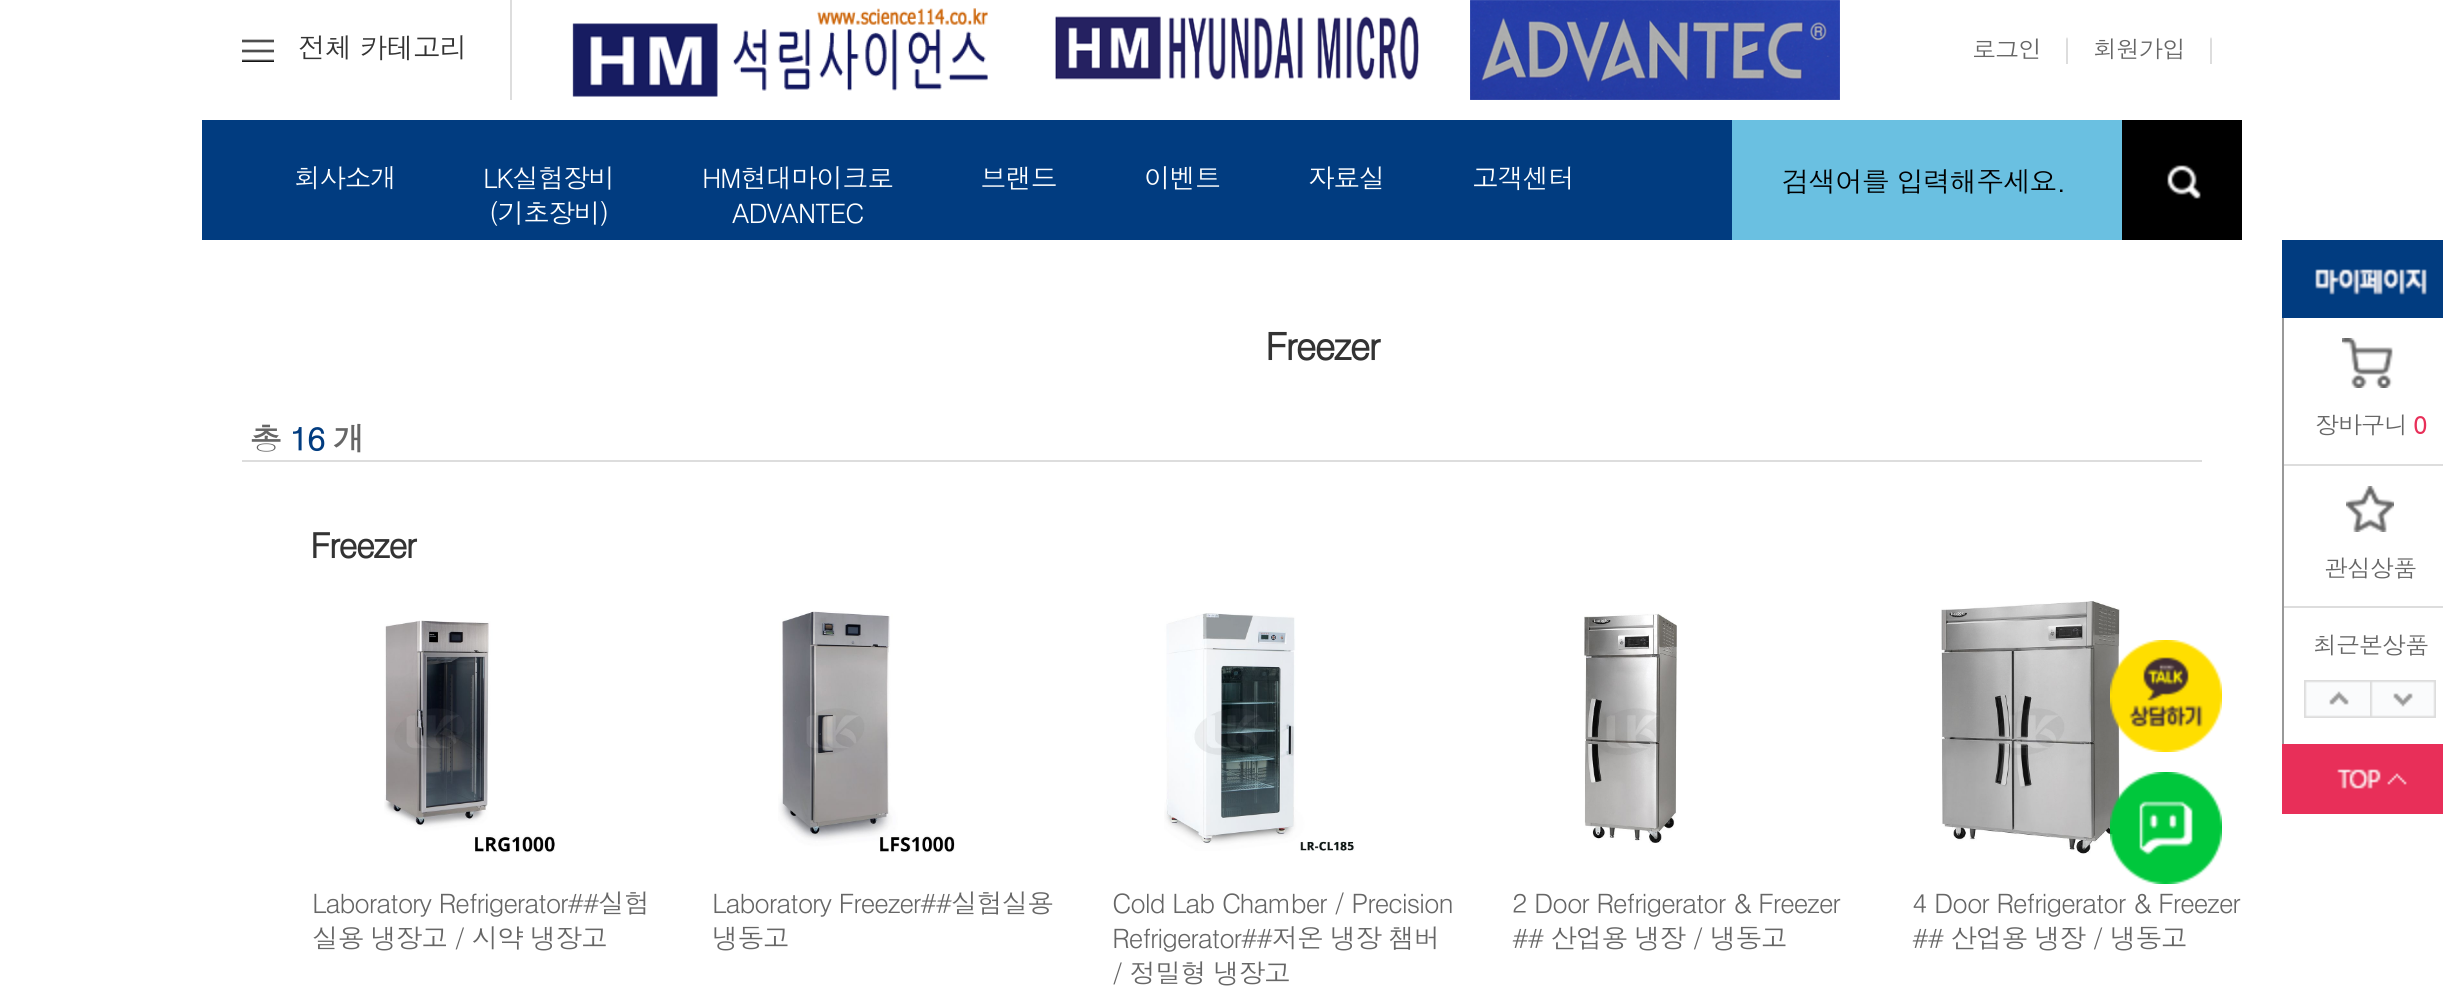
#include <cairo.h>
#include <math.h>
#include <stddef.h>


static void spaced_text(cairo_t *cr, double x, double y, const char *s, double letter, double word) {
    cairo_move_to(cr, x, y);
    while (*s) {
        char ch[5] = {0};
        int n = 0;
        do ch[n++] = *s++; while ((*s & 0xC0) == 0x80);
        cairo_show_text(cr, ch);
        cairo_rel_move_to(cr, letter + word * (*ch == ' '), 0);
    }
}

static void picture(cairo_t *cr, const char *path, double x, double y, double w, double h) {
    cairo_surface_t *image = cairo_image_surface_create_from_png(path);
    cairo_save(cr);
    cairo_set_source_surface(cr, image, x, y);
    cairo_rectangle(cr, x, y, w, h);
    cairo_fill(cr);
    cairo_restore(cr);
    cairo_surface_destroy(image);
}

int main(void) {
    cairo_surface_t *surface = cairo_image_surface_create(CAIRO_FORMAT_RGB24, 2443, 994);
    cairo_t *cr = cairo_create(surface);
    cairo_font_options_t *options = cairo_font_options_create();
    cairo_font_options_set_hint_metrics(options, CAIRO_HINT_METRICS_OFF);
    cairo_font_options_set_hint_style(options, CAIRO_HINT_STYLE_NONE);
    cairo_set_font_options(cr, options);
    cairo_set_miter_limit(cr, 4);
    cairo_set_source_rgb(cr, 1, 1, 1);
    cairo_paint(cr);
    picture(cr, "img1.png", 242, 39, 32, 23);
    cairo_select_font_face(cr, "Dotum", CAIRO_FONT_SLANT_NORMAL, CAIRO_FONT_WEIGHT_NORMAL);
    cairo_set_font_size(cr, 28);
    cairo_set_source_rgb(cr, 0.2, 0.2, 0.2);
    spaced_text(cr, 298, 58, "전체 카테고리", -1.3, 0);
    cairo_set_source_rgb(cr, 0.867, 0.867, 0.867);
    cairo_rectangle(cr, 510, 0, 2, 100);
    cairo_fill(cr);
    picture(cr, "img2.png", 572, 8, 416, 89);
    picture(cr, "img3.png", 1055, 16, 364, 64);
    picture(cr, "img4.png", 1470, 0, 370, 100);
    cairo_set_font_size(cr, 24);
    cairo_set_source_rgb(cr, 0.4, 0.4, 0.4);
    spaced_text(cr, 1972, 58, "로그인", -1, 0);
    picture(cr, "img5.png", 2066, 37, 2, 27);
    spaced_text(cr, 2093, 58, "회원가입", -1, 0);
    picture(cr, "img5.png", 2210, 37, 2, 27);
    cairo_set_source_rgb(cr, 0.004, 0.235, 0.502);
    cairo_rectangle(cr, 202, 120, 1530, 120);
    cairo_fill(cr);
    cairo_set_font_size(cr, 26.7);
    cairo_set_source_rgb(cr, 1, 1, 1);
    spaced_text(cr, 294, 188, "회사소개", -1.3, 0);
    spaced_text(cr, 483, 188, "LK실험장비", -1.3, 0);
    spaced_text(cr, 489, 223, "(기초장비)", -1.3, 0);
    spaced_text(cr, 702, 188, "HM현대마이크로", -1.3, 0);
    spaced_text(cr, 732, 223, "ADVANTEC", -1.3, 0);
    spaced_text(cr, 980, 188, "브랜드", -1.3, 0);
    spaced_text(cr, 1144, 188, "이벤트", -1.3, 0);
    spaced_text(cr, 1308, 188, "자료실", -1.3, 0);
    spaced_text(cr, 1472, 188, "고객센터", -1.3, 0);
    cairo_set_source_rgb(cr, 0.416, 0.753, 0.882);
    cairo_rectangle(cr, 1732, 120, 390, 120);
    cairo_fill(cr);
    cairo_set_font_size(cr, 28);
    cairo_set_source_rgb(cr, 0, 0, 0);
    spaced_text(cr, 1782, 192, "검색어를 입력해주세요.", -1.4, 0);
    picture(cr, "img6.png", 2122, 120, 120, 120);
    cairo_select_font_face(cr, "Dotum", CAIRO_FONT_SLANT_NORMAL, CAIRO_FONT_WEIGHT_BOLD);
    cairo_set_font_size(cr, 37.5);
    cairo_set_source_rgb(cr, 0.2, 0.2, 0.2);
    spaced_text(cr, 1265, 360, "Freezer", -2, 0);
    cairo_set_font_size(cr, 32);
    cairo_set_source_rgb(cr, 0.4, 0.4, 0.4);
    spaced_text(cr, 250, 451, "총", -2, 0);
    cairo_set_source_rgb(cr, 0.004, 0.235, 0.502);
    spaced_text(cr, 290, 451, "16", -2, 0);
    cairo_set_source_rgb(cr, 0.4, 0.4, 0.4);
    spaced_text(cr, 333, 451, "개", -2, 0);
    cairo_set_source_rgb(cr, 0.867, 0.867, 0.867);
    cairo_rectangle(cr, 242, 460, 1960, 2);
    cairo_fill(cr);
    cairo_set_font_size(cr, 34.5);
    cairo_set_source_rgb(cr, 0.2, 0.2, 0.2);
    spaced_text(cr, 310, 558, "Freezer", -1.75, 0);
    picture(cr, "img7.png", 384, 620, 171, 233);
    cairo_select_font_face(cr, "Dotum", CAIRO_FONT_SLANT_NORMAL, CAIRO_FONT_WEIGHT_NORMAL);
    cairo_set_font_size(cr, 26.7);
    cairo_set_source_rgb(cr, 0.4, 0.4, 0.4);
    spaced_text(cr, 312, 913, "Laboratory Refrigerator##실험", -1.3, 0);
    spaced_text(cr, 312, 948, "실용 냉장고 / 시약 냉장고", -1.3, 0);
    picture(cr, "img8.png", 778, 611, 177, 242);
    spaced_text(cr, 712, 913, "Laboratory Freezer##실험실용", -1.3, 0);
    spaced_text(cr, 712, 948, "냉동고", -1.3, 0);
    picture(cr, "img9.png", 1164, 613, 191, 238);
    spaced_text(cr, 1112, 913, "Cold Lab Chamber / Precision", -1.3, 0);
    spaced_text(cr, 1112, 948, "Refrigerator##저온 냉장 챔버", -1.3, 0);
    spaced_text(cr, 1112, 983, "/ 정밀형 냉장고", -1.3, 0);
    picture(cr, "img10.png", 1584, 613, 93, 230);
    spaced_text(cr, 1512, 913, "2 Door Refrigerator & Freezer", -1.3, 0);
    spaced_text(cr, 1512, 948, "## 산업용 냉장 / 냉동고", -1.3, 0);
    picture(cr, "img11.png", 1941, 601, 179, 253);
    spaced_text(cr, 1912, 913, "4 Door Refrigerator & Freezer", -1.3, 0);
    spaced_text(cr, 1912, 948, "## 산업용 냉장 / 냉동고", -1.3, 0);
    picture(cr, "img12.png", 2282, 240, 161, 78);
    cairo_set_source_rgb(cr, 0.6, 0.6, 0.6);
    cairo_rectangle(cr, 2282, 318, 2, 426);
    cairo_fill(cr);
    picture(cr, "img13.png", 2342, 338, 51, 50);
    cairo_set_source_rgb(cr, 0.867, 0.867, 0.867);
    cairo_rectangle(cr, 2284, 464, 159, 2);
    cairo_fill(cr);
    cairo_set_font_size(cr, 24);
    cairo_set_source_rgb(cr, 0.4, 0.4, 0.4);
    spaced_text(cr, 2315, 434, "장바구니", -1, 0);
    cairo_select_font_face(cr, "Dotum", CAIRO_FONT_SLANT_NORMAL, CAIRO_FONT_WEIGHT_BOLD);
    cairo_set_source_rgb(cr, 0.91, 0.184, 0.349);
    spaced_text(cr, 2413, 434, "0", -1, 0);
    picture(cr, "img14.png", 2346, 486, 48, 46);
    cairo_set_source_rgb(cr, 0.867, 0.867, 0.867);
    cairo_rectangle(cr, 2284, 606, 159, 2);
    cairo_fill(cr);
    cairo_select_font_face(cr, "Dotum", CAIRO_FONT_SLANT_NORMAL, CAIRO_FONT_WEIGHT_NORMAL);
    cairo_set_source_rgb(cr, 0.4, 0.4, 0.4);
    spaced_text(cr, 2324, 577, "관심상품", -1, 0);
    spaced_text(cr, 2313, 654, "최근본상품", -1, 0);
    picture(cr, "img15.png", 2304, 680, 66, 38);
    picture(cr, "img16.png", 2370, 680, 66, 38);
    picture(cr, "img17.png", 2282, 744, 161, 70);
    picture(cr, "img18.png", 2110, 640, 112, 112);
    picture(cr, "img19.png", 2110, 772, 112, 112);
    cairo_surface_write_to_png(surface, "page.png");
    cairo_font_options_destroy(options);
    cairo_destroy(cr);
    cairo_surface_destroy(surface);
    return 0;
}
